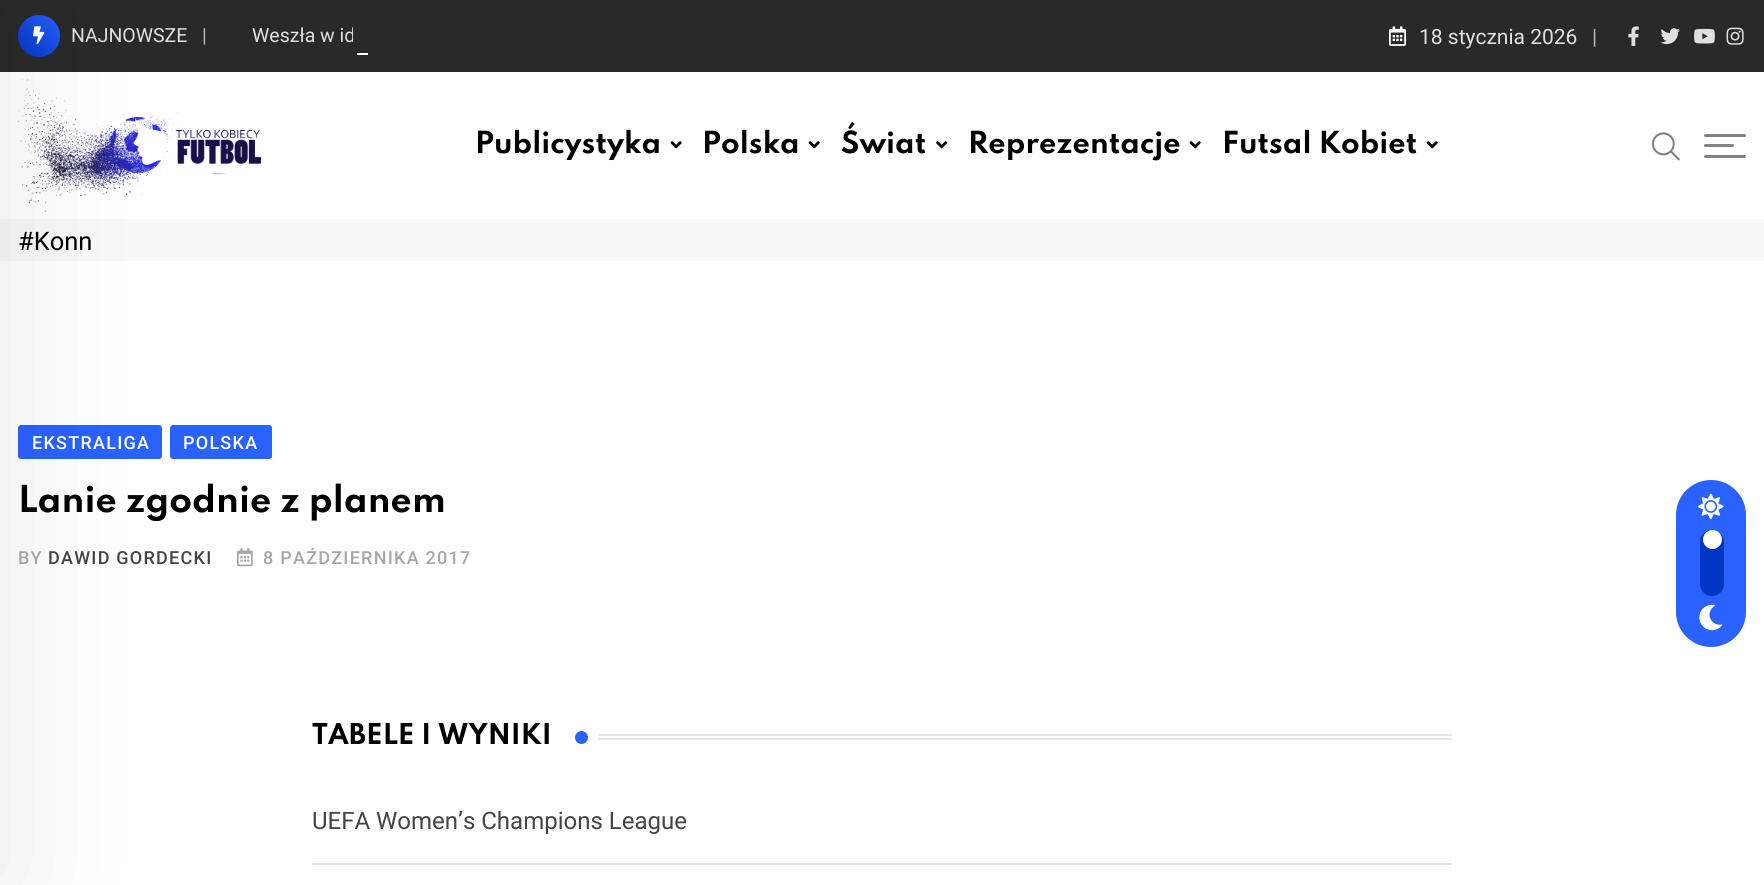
#include <cairo.h>
#include <math.h>
#include <stddef.h>


static void spaced_text(cairo_t *cr, double x, double y, const char *s, double letter, double word) {
    cairo_move_to(cr, x, y);
    while (*s) {
        char ch[5] = {0};
        int n = 0;
        do ch[n++] = *s++; while ((*s & 0xC0) == 0x80);
        cairo_show_text(cr, ch);
        cairo_rel_move_to(cr, letter + word * (*ch == ' '), 0);
    }
}

static void round_rect(cairo_t *cr, double x, double y, double w, double h, double r) {
    cairo_new_sub_path(cr);
    cairo_arc(cr, x + w - r, y + h - r, r, 0, M_PI / 2);
    cairo_arc(cr, x + r, y + h - r, r, M_PI / 2, M_PI);
    cairo_arc(cr, x + r, y + r, r, M_PI, 1.5 * M_PI);
    cairo_arc(cr, x + w - r, y + r, r, 1.5 * M_PI, 2 * M_PI);
    cairo_close_path(cr);
}

static void shadow(cairo_t *cr, double x, double y, double w, double h, double r, double blur, double alpha) {
    cairo_push_group_with_content(cr, CAIRO_CONTENT_ALPHA);
    cairo_set_operator(cr, CAIRO_OPERATOR_SOURCE);
    for (int i = 15; i >= -15 && fmin(w, h) + blur * i / 3 > 0; i -= 2) {
        double e = blur * i / 6;
        cairo_set_source_rgba(cr, 0, 0, 0, alpha * erfc((i - 1) / 8.5) / 2);
        round_rect(cr, x - e, y - e, w + 2 * e, h + 2 * e, fmax(0, fmin(r + e + blur * .6, fmin(w, h) / 2 + e)));
        cairo_fill(cr);
    }
    cairo_pattern_t *soft = cairo_pop_group(cr);
    cairo_mask(cr, soft);
    cairo_pattern_destroy(soft);
}

static void picture(cairo_t *cr, const char *path, double x, double y, double w, double h) {
    cairo_surface_t *image = cairo_image_surface_create_from_png(path);
    cairo_save(cr);
    cairo_set_source_surface(cr, image, x, y);
    cairo_rectangle(cr, x, y, w, h);
    cairo_fill(cr);
    cairo_restore(cr);
    cairo_surface_destroy(image);
}

int main(void) {
    cairo_surface_t *surface = cairo_image_surface_create(CAIRO_FORMAT_RGB24, 1764, 885);
    cairo_t *cr = cairo_create(surface);
    cairo_font_options_t *options = cairo_font_options_create();
    cairo_font_options_set_hint_metrics(options, CAIRO_HINT_METRICS_OFF);
    cairo_font_options_set_hint_style(options, CAIRO_HINT_STYLE_NONE);
    cairo_set_font_options(cr, options);
    cairo_set_miter_limit(cr, 4);
    cairo_pattern_t *gradient;
    cairo_set_source_rgb(cr, 1, 1, 1);
    cairo_paint(cr);
    cairo_set_source_rgb(cr, 0.161, 0.161, 0.161);
    cairo_rectangle(cr, 0, 0, 1764, 72);
    cairo_fill(cr);
    gradient = cairo_pattern_create_linear(18, 57, 60, 15);
    cairo_pattern_add_color_stop_rgba(gradient, 0, 0, 0.204, 0.761, 1);
    cairo_pattern_add_color_stop_rgba(gradient, 1, 0.161, 0.384, 1, 1);
    cairo_set_source(cr, gradient);
    cairo_pattern_destroy(gradient);
    cairo_arc(cr, 39, 36, 21, 0, 2 * M_PI);
    cairo_fill(cr);
    picture(cr, "img1.png", 33, 26, 12, 19);
    cairo_select_font_face(cr, "Roboto", CAIRO_FONT_SLANT_NORMAL, CAIRO_FONT_WEIGHT_NORMAL);
    cairo_set_font_size(cr, 19.5);
    cairo_set_source_rgb(cr, 0.878, 0.878, 0.878);
    cairo_move_to(cr, 71, 42);
    cairo_show_text(cr, "NAJNOWSZE");
    cairo_set_source_rgb(cr, 0.733, 0.733, 0.733);
    cairo_move_to(cr, 202, 42);
    cairo_show_text(cr, "|");
    cairo_set_source_rgb(cr, 0.878, 0.878, 0.878);
    cairo_move_to(cr, 252, 42);
    cairo_show_text(cr, "Weszła w id");
    cairo_set_source_rgb(cr, 0.161, 0.161, 0.161);
    cairo_rectangle(cr, 353, 27, 1, 15);
    cairo_fill(cr);
    cairo_set_source_rgb(cr, 1, 1, 1);
    cairo_rectangle(cr, 357, 53, 11, 2);
    cairo_fill(cr);
    picture(cr, "img2.png", 1389, 26, 18, 20);
    cairo_set_font_size(cr, 21);
    cairo_set_source_rgb(cr, 0.878, 0.878, 0.878);
    cairo_move_to(cr, 1419, 44);
    cairo_show_text(cr, "18 stycznia 2026");
    cairo_set_source_rgb(cr, 0.733, 0.733, 0.733);
    cairo_move_to(cr, 1592, 44);
    cairo_show_text(cr, "|");
    picture(cr, "img3.png", 1628, 26, 11, 20);
    picture(cr, "img4.png", 1660, 28, 20, 17);
    picture(cr, "img5.png", 1694, 28, 21, 16);
    picture(cr, "img6.png", 1726, 27, 18, 18);
    picture(cr, "img8.png", 18, 79, 243, 133);
    cairo_set_source_rgb(cr, 0.969, 0.969, 0.969);
    cairo_rectangle(cr, 0, 219, 1764, 42);
    cairo_fill(cr);
    cairo_set_source_rgb(cr, 0.161, 0.384, 1);
    round_rect(cr, 18, 425, 144, 34, 3);
    cairo_fill(cr);
    round_rect(cr, 170, 425, 102, 34, 3);
    cairo_fill(cr);
    cairo_set_source_rgb(cr, 0, 0, 0);
    shadow(cr, -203, 0, 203, 885, 0, 67.5, 0.1);
    cairo_set_source_rgb(cr, 0.506, 0.506, 0.506);
    round_rect(cr, 1704, 134, 42, 3, 1.5);
    cairo_fill(cr);
    round_rect(cr, 1704, 144, 30, 3, 1.5);
    cairo_fill(cr);
    round_rect(cr, 1704, 155, 42, 3, 1.5);
    cairo_fill(cr);
    picture(cr, "img7.png", 1652, 132, 28, 29);
    cairo_select_font_face(cr, "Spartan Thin", CAIRO_FONT_SLANT_NORMAL, CAIRO_FONT_WEIGHT_BOLD);
    cairo_set_font_size(cr, 27);
    cairo_set_source_rgb(cr, 0, 0, 0);
    cairo_move_to(cr, 475, 153);
    cairo_show_text(cr, "Publicystyka");
    picture(cr, "img9.png", 670, 141, 12, 8);
    cairo_move_to(cr, 702, 153);
    cairo_show_text(cr, "Polska");
    picture(cr, "img9.png", 808, 141, 12, 8);
    cairo_move_to(cr, 841, 153);
    cairo_show_text(cr, "Świat");
    picture(cr, "img10.png", 936, 141, 12, 8);
    cairo_move_to(cr, 968, 153);
    cairo_show_text(cr, "Reprezentacje");
    picture(cr, "img9.png", 1189, 141, 12, 8);
    cairo_move_to(cr, 1222, 153);
    cairo_show_text(cr, "Futsal Kobiet");
    picture(cr, "img9.png", 1426, 141, 12, 8);
    cairo_select_font_face(cr, "Roboto", CAIRO_FONT_SLANT_NORMAL, CAIRO_FONT_WEIGHT_NORMAL);
    cairo_set_font_size(cr, 25.5);
    cairo_move_to(cr, 18, 250);
    cairo_show_text(cr, "#Konn");
    cairo_select_font_face(cr, "Roboto Medium", CAIRO_FONT_SLANT_NORMAL, CAIRO_FONT_WEIGHT_NORMAL);
    cairo_set_font_size(cr, 18);
    cairo_set_source_rgb(cr, 1, 1, 1);
    spaced_text(cr, 32, 449, "EKSTRALIGA", 1.25, 0);
    spaced_text(cr, 183, 449, "POLSKA", 1.25, 0);
    cairo_select_font_face(cr, "Spartan Thin", CAIRO_FONT_SLANT_NORMAL, CAIRO_FONT_WEIGHT_BOLD);
    cairo_set_font_size(cr, 33);
    cairo_set_source_rgb(cr, 0, 0, 0);
    cairo_move_to(cr, 18, 512);
    cairo_show_text(cr, "Lanie zgodnie z planem");
    cairo_select_font_face(cr, "Roboto Medium", CAIRO_FONT_SLANT_NORMAL, CAIRO_FONT_WEIGHT_NORMAL);
    cairo_set_font_size(cr, 18);
    cairo_set_source_rgb(cr, 0.647, 0.651, 0.667);
    spaced_text(cr, 18, 564, "BY", 1.25, 0);
    cairo_set_source_rgb(cr, 0.267, 0.267, 0.267);
    spaced_text(cr, 48, 564, "DAWID GORDECKI", 1.25, 0);
    picture(cr, "img11.png", 237, 548, 16, 19);
    cairo_set_source_rgb(cr, 0.647, 0.651, 0.667);
    spaced_text(cr, 263, 564, "8 PAŹDZIERNIKA 2017", 1.25, 0);
    cairo_select_font_face(cr, "Spartan Thin", CAIRO_FONT_SLANT_NORMAL, CAIRO_FONT_WEIGHT_BOLD);
    cairo_set_font_size(cr, 25.5);
    cairo_set_source_rgb(cr, 0, 0, 0);
    cairo_move_to(cr, 312, 744);
    cairo_show_text(cr, "TABELE I WYNIKI");
    cairo_set_source_rgb(cr, 0.161, 0.384, 1);
    cairo_new_path(cr);
    cairo_arc(cr, 581.5, 737.5, 6.5, 0, 2 * M_PI);
    cairo_fill(cr);
    cairo_set_source_rgb(cr, 0.898, 0.898, 0.898);
    cairo_rectangle(cr, 599, 734, 853, 2);
    cairo_fill(cr);
    cairo_rectangle(cr, 599, 738, 853, 2);
    cairo_fill(cr);
    cairo_rectangle(cr, 312, 863, 1140, 2);
    cairo_fill(cr);
    cairo_select_font_face(cr, "Roboto", CAIRO_FONT_SLANT_NORMAL, CAIRO_FONT_WEIGHT_NORMAL);
    cairo_set_font_size(cr, 24);
    cairo_set_source_rgb(cr, 0.267, 0.267, 0.267);
    cairo_move_to(cr, 312, 829);
    cairo_show_text(cr, "UEFA Women’s Champions League");
    cairo_set_source_rgb(cr, 0.161, 0.384, 1);
    round_rect(cr, 1676, 480, 70, 167, 35);
    cairo_fill(cr);
    picture(cr, "img12.png", 1698, 493, 26, 27);
    cairo_set_source_rgb(cr, 0, 0.204, 0.761);
    round_rect(cr, 1700, 530, 24, 66, 12);
    cairo_fill(cr);
    cairo_set_source_rgb(cr, 1, 1, 1);
    cairo_arc(cr, 1712.5, 539.5, 9.5, 0, 2 * M_PI);
    cairo_fill(cr);
    picture(cr, "img13.png", 1699, 604, 24, 27);
    cairo_surface_write_to_png(surface, "page.png");
    cairo_font_options_destroy(options);
    cairo_destroy(cr);
    cairo_surface_destroy(surface);
    return 0;
}
